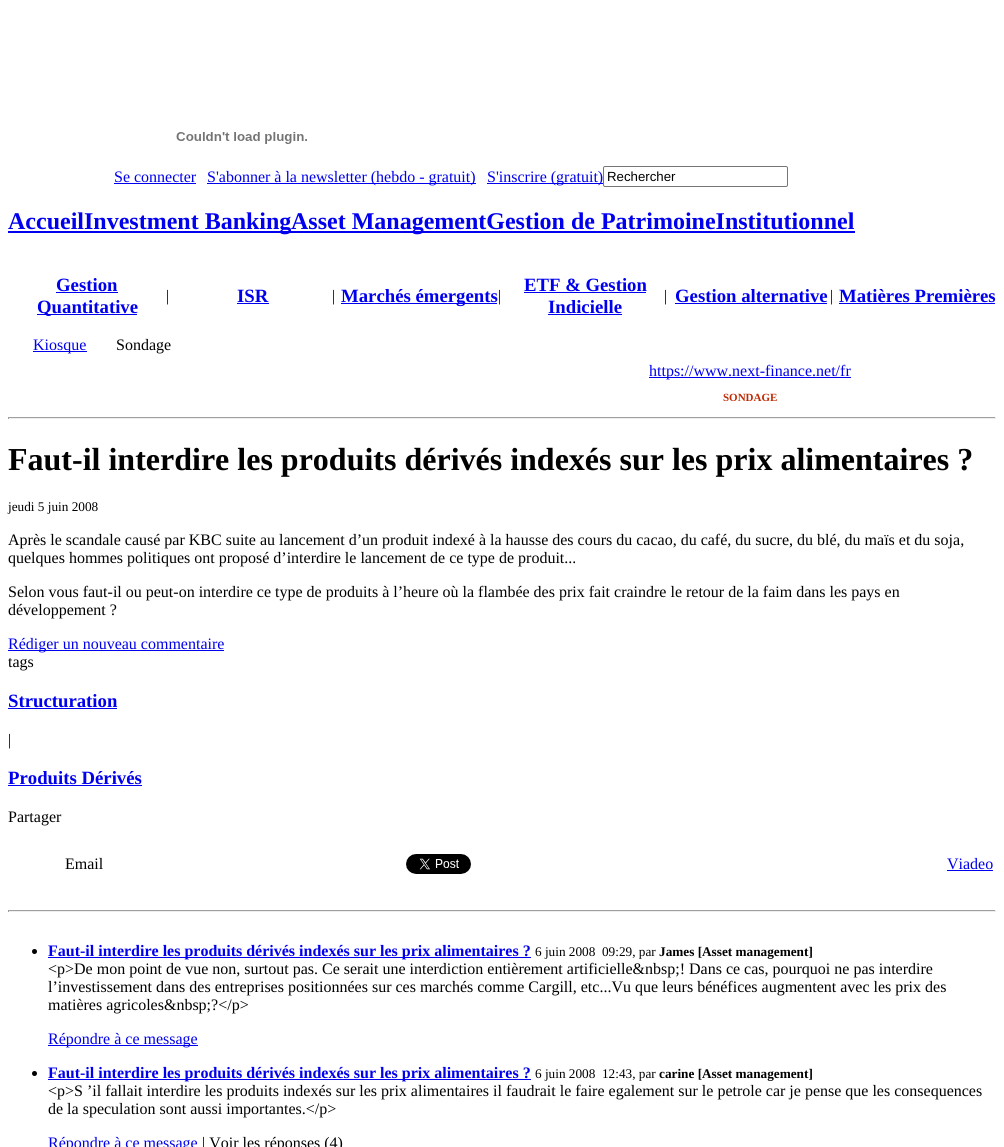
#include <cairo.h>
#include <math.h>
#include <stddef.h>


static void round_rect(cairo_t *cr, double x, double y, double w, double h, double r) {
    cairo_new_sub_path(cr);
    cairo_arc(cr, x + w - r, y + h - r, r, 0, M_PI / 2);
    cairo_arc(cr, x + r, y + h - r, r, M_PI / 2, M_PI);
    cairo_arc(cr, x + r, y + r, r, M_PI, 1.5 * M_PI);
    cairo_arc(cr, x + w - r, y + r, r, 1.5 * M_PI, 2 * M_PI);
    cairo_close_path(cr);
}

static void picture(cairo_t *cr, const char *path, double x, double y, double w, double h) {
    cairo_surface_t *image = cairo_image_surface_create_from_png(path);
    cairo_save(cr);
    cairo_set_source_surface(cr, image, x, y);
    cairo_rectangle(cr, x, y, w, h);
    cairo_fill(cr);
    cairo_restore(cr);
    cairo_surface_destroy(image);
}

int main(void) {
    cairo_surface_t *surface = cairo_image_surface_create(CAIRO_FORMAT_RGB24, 1004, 1147);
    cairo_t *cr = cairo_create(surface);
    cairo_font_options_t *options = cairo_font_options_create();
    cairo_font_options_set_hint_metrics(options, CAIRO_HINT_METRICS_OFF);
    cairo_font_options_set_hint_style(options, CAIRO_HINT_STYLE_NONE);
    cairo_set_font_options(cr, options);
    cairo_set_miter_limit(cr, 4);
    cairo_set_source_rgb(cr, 1, 1, 1);
    cairo_paint(cr);
    picture(cr, "img1.png", 176, 132, 131, 12);
    cairo_select_font_face(cr, "Liberation Serif", CAIRO_FONT_SLANT_NORMAL, CAIRO_FONT_WEIGHT_NORMAL);
    cairo_set_font_size(cr, 16);
    cairo_set_source_rgb(cr, 0, 0, 0.933);
    cairo_move_to(cr, 114, 182);
    cairo_show_text(cr, "Se connecter");
    cairo_rectangle(cr, 114, 183, 82, 1);
    cairo_fill(cr);
    cairo_rectangle(cr, 207, 183, 269, 1);
    cairo_fill(cr);
    cairo_move_to(cr, 207, 182);
    cairo_show_text(cr, "S'abonner à la newsletter (hebdo - gratuit)");
    cairo_rectangle(cr, 487, 183, 116, 1);
    cairo_fill(cr);
    cairo_move_to(cr, 487, 182);
    cairo_show_text(cr, "S'inscrire (gratuit)");
    round_rect(cr, 603.5, 166.5, 184, 20, 1.5);
    cairo_set_source_rgb(cr, 0.463, 0.463, 0.463);
    cairo_set_line_width(cr, 1);
    cairo_stroke(cr);
    cairo_select_font_face(cr, "Liberation Sans", CAIRO_FONT_SLANT_NORMAL, CAIRO_FONT_WEIGHT_NORMAL);
    cairo_set_font_size(cr, 13.25);
    cairo_set_source_rgb(cr, 0, 0, 0);
    cairo_move_to(cr, 607, 181);
    cairo_show_text(cr, "Rechercher");
    cairo_set_source_rgb(cr, 0, 0, 0.933);
    cairo_rectangle(cr, 8, 231, 283, 2);
    cairo_fill(cr);
    cairo_select_font_face(cr, "Liberation Serif", CAIRO_FONT_SLANT_NORMAL, CAIRO_FONT_WEIGHT_BOLD);
    cairo_set_font_size(cr, 24);
    cairo_move_to(cr, 8, 229);
    cairo_show_text(cr, "AccueilInvestment Banking");
    cairo_rectangle(cr, 291, 231, 564, 2);
    cairo_fill(cr);
    cairo_move_to(cr, 291, 229);
    cairo_show_text(cr, "Asset ManagementGestion de PatrimoineInstitutionnel");
    cairo_set_font_size(cr, 18.75);
    cairo_move_to(cr, 56, 291);
    cairo_show_text(cr, "Gestion");
    cairo_rectangle(cr, 56, 292, 62, 1);
    cairo_fill(cr);
    cairo_rectangle(cr, 37, 314, 100, 1);
    cairo_fill(cr);
    cairo_move_to(cr, 37, 313);
    cairo_show_text(cr, "Quantitative");
    cairo_select_font_face(cr, "Liberation Serif", CAIRO_FONT_SLANT_NORMAL, CAIRO_FONT_WEIGHT_NORMAL);
    cairo_set_font_size(cr, 16);
    cairo_set_source_rgb(cr, 0, 0, 0);
    cairo_move_to(cr, 166, 301);
    cairo_show_text(cr, "|");
    cairo_select_font_face(cr, "Liberation Serif", CAIRO_FONT_SLANT_NORMAL, CAIRO_FONT_WEIGHT_BOLD);
    cairo_set_font_size(cr, 18.75);
    cairo_set_source_rgb(cr, 0, 0, 0.933);
    cairo_move_to(cr, 237, 302);
    cairo_show_text(cr, "ISR");
    cairo_rectangle(cr, 237, 303, 32, 1);
    cairo_fill(cr);
    cairo_select_font_face(cr, "Liberation Serif", CAIRO_FONT_SLANT_NORMAL, CAIRO_FONT_WEIGHT_NORMAL);
    cairo_set_font_size(cr, 16);
    cairo_set_source_rgb(cr, 0, 0, 0);
    cairo_move_to(cr, 332, 301);
    cairo_show_text(cr, "|");
    cairo_set_source_rgb(cr, 0, 0, 0.933);
    cairo_rectangle(cr, 341, 303, 156, 1);
    cairo_fill(cr);
    cairo_select_font_face(cr, "Liberation Serif", CAIRO_FONT_SLANT_NORMAL, CAIRO_FONT_WEIGHT_BOLD);
    cairo_set_font_size(cr, 18.75);
    cairo_move_to(cr, 341, 302);
    cairo_show_text(cr, "Marchés émergents");
    cairo_select_font_face(cr, "Liberation Serif", CAIRO_FONT_SLANT_NORMAL, CAIRO_FONT_WEIGHT_NORMAL);
    cairo_set_font_size(cr, 16);
    cairo_set_source_rgb(cr, 0, 0, 0);
    cairo_move_to(cr, 498, 301);
    cairo_show_text(cr, "|");
    cairo_select_font_face(cr, "Liberation Serif", CAIRO_FONT_SLANT_NORMAL, CAIRO_FONT_WEIGHT_BOLD);
    cairo_set_font_size(cr, 18.75);
    cairo_set_source_rgb(cr, 0, 0, 0.933);
    cairo_move_to(cr, 524, 291);
    cairo_show_text(cr, "ETF & Gestion");
    cairo_rectangle(cr, 524, 292, 122, 1);
    cairo_fill(cr);
    cairo_move_to(cr, 548, 313);
    cairo_show_text(cr, "Indicielle");
    cairo_rectangle(cr, 548, 314, 74, 1);
    cairo_fill(cr);
    cairo_select_font_face(cr, "Liberation Serif", CAIRO_FONT_SLANT_NORMAL, CAIRO_FONT_WEIGHT_NORMAL);
    cairo_set_font_size(cr, 16);
    cairo_set_source_rgb(cr, 0, 0, 0);
    cairo_move_to(cr, 664, 301);
    cairo_show_text(cr, "|");
    cairo_select_font_face(cr, "Liberation Serif", CAIRO_FONT_SLANT_NORMAL, CAIRO_FONT_WEIGHT_BOLD);
    cairo_set_font_size(cr, 18.75);
    cairo_set_source_rgb(cr, 0, 0, 0.933);
    cairo_move_to(cr, 675, 302);
    cairo_show_text(cr, "Gestion alternative");
    cairo_rectangle(cr, 675, 303, 152, 1);
    cairo_fill(cr);
    cairo_select_font_face(cr, "Liberation Serif", CAIRO_FONT_SLANT_NORMAL, CAIRO_FONT_WEIGHT_NORMAL);
    cairo_set_font_size(cr, 16);
    cairo_set_source_rgb(cr, 0, 0, 0);
    cairo_move_to(cr, 830, 301);
    cairo_show_text(cr, "|");
    cairo_select_font_face(cr, "Liberation Serif", CAIRO_FONT_SLANT_NORMAL, CAIRO_FONT_WEIGHT_BOLD);
    cairo_set_font_size(cr, 18.75);
    cairo_set_source_rgb(cr, 0, 0, 0.933);
    cairo_move_to(cr, 839, 302);
    cairo_show_text(cr, "Matières Premières");
    cairo_rectangle(cr, 839, 303, 156, 1);
    cairo_fill(cr);
    cairo_rectangle(cr, 33, 351, 54, 1);
    cairo_fill(cr);
    cairo_select_font_face(cr, "Liberation Serif", CAIRO_FONT_SLANT_NORMAL, CAIRO_FONT_WEIGHT_NORMAL);
    cairo_set_font_size(cr, 16);
    cairo_move_to(cr, 33, 350);
    cairo_show_text(cr, "Kiosque");
    cairo_set_source_rgb(cr, 0, 0, 0);
    cairo_move_to(cr, 116, 350);
    cairo_show_text(cr, "Sondage");
    cairo_set_source_rgb(cr, 0, 0, 0.933);
    cairo_rectangle(cr, 649, 377, 202, 1);
    cairo_fill(cr);
    cairo_move_to(cr, 649, 376);
    cairo_show_text(cr, "https://www.next-finance.net/fr");
    cairo_select_font_face(cr, "Liberation Serif", CAIRO_FONT_SLANT_NORMAL, CAIRO_FONT_WEIGHT_BOLD);
    cairo_set_font_size(cr, 11);
    cairo_set_source_rgb(cr, 0.745, 0.165, 0.016);
    cairo_move_to(cr, 723, 401);
    cairo_show_text(cr, "SONDAGE");
    cairo_set_source_rgb(cr, 0.624, 0.624, 0.624);
    cairo_rectangle(cr, 8, 417, 988, 1);
    cairo_fill(cr);
    cairo_set_source_rgb(cr, 0.933, 0.933, 0.933);
    cairo_rectangle(cr, 995, 417, 1, 2);
    cairo_fill(cr);
    cairo_rectangle(cr, 8, 418, 988, 1);
    cairo_fill(cr);
    cairo_set_source_rgb(cr, 0.624, 0.624, 0.624);
    cairo_rectangle(cr, 8, 417, 1, 2);
    cairo_fill(cr);
    cairo_set_font_size(cr, 32);
    cairo_set_source_rgb(cr, 0, 0, 0);
    cairo_move_to(cr, 8, 470);
    cairo_show_text(cr, "Faut-il interdire les produits dérivés indexés sur les prix alimentaires ?");
    cairo_select_font_face(cr, "Liberation Serif", CAIRO_FONT_SLANT_NORMAL, CAIRO_FONT_WEIGHT_NORMAL);
    cairo_set_font_size(cr, 13.25);
    cairo_move_to(cr, 8, 511);
    cairo_show_text(cr, "jeudi 5 juin 2008");
    cairo_set_font_size(cr, 16);
    cairo_move_to(cr, 8, 545);
    cairo_show_text(cr, "Après le scandale causé par KBC suite au lancement d’un produit indexé à la hausse des cours du cacao, du café, du sucre, du blé, du maïs et du soja,");
    cairo_move_to(cr, 8, 563);
    cairo_show_text(cr, "quelques hommes politiques ont proposé d’interdire le lancement de ce type de produit...");
    cairo_move_to(cr, 8, 597);
    cairo_show_text(cr, "Selon vous faut-il ou peut-on interdire ce type de produits à l’heure où la flambée des prix fait craindre le retour de la faim dans les pays en");
    cairo_move_to(cr, 8, 615);
    cairo_show_text(cr, "développement ?");
    cairo_set_source_rgb(cr, 0, 0, 0.933);
    cairo_rectangle(cr, 8, 650, 216, 1);
    cairo_fill(cr);
    cairo_move_to(cr, 8, 649);
    cairo_show_text(cr, "Rédiger un nouveau commentaire");
    cairo_set_source_rgb(cr, 0, 0, 0);
    cairo_move_to(cr, 8, 667);
    cairo_show_text(cr, "tags");
    cairo_select_font_face(cr, "Liberation Serif", CAIRO_FONT_SLANT_NORMAL, CAIRO_FONT_WEIGHT_BOLD);
    cairo_set_font_size(cr, 18.75);
    cairo_set_source_rgb(cr, 0, 0, 0.933);
    cairo_move_to(cr, 8, 707);
    cairo_show_text(cr, "Structuration");
    cairo_rectangle(cr, 8, 708, 109, 1);
    cairo_fill(cr);
    cairo_select_font_face(cr, "Liberation Serif", CAIRO_FONT_SLANT_NORMAL, CAIRO_FONT_WEIGHT_NORMAL);
    cairo_set_font_size(cr, 16);
    cairo_set_source_rgb(cr, 0, 0, 0);
    cairo_move_to(cr, 8, 745);
    cairo_show_text(cr, "|");
    cairo_select_font_face(cr, "Liberation Serif", CAIRO_FONT_SLANT_NORMAL, CAIRO_FONT_WEIGHT_BOLD);
    cairo_set_font_size(cr, 18.75);
    cairo_set_source_rgb(cr, 0, 0, 0.933);
    cairo_move_to(cr, 8, 784);
    cairo_show_text(cr, "Produits Dérivés");
    cairo_rectangle(cr, 8, 785, 134, 1);
    cairo_fill(cr);
    cairo_select_font_face(cr, "Liberation Serif", CAIRO_FONT_SLANT_NORMAL, CAIRO_FONT_WEIGHT_NORMAL);
    cairo_set_font_size(cr, 16);
    cairo_set_source_rgb(cr, 0, 0, 0);
    cairo_move_to(cr, 8, 822);
    cairo_show_text(cr, "Partager");
    cairo_move_to(cr, 65, 869);
    cairo_show_text(cr, "Email");
    picture(cr, "img2.png", 406, 854, 65, 20);
    cairo_set_source_rgb(cr, 0, 0, 0.933);
    cairo_move_to(cr, 947, 869);
    cairo_show_text(cr, "Viadeo");
    cairo_rectangle(cr, 947, 870, 46, 1);
    cairo_fill(cr);
    cairo_set_source_rgb(cr, 0.624, 0.624, 0.624);
    cairo_rectangle(cr, 8, 910, 988, 1);
    cairo_fill(cr);
    cairo_set_source_rgb(cr, 0.933, 0.933, 0.933);
    cairo_rectangle(cr, 995, 910, 1, 2);
    cairo_fill(cr);
    cairo_rectangle(cr, 8, 911, 988, 1);
    cairo_fill(cr);
    cairo_set_source_rgb(cr, 0.624, 0.624, 0.624);
    cairo_rectangle(cr, 8, 910, 1, 2);
    cairo_fill(cr);
    cairo_set_source_rgb(cr, 0, 0, 0);
    cairo_arc(cr, 34.5, 951.5, 2.5, 0, 2 * M_PI);
    cairo_fill(cr);
    cairo_set_source_rgb(cr, 0, 0, 0.933);
    cairo_rectangle(cr, 48, 957, 483, 1);
    cairo_fill(cr);
    cairo_select_font_face(cr, "Liberation Serif", CAIRO_FONT_SLANT_NORMAL, CAIRO_FONT_WEIGHT_BOLD);
    cairo_move_to(cr, 48, 956);
    cairo_show_text(cr, "Faut-il interdire les produits dérivés indexés sur les prix alimentaires ?");
    cairo_select_font_face(cr, "Liberation Serif", CAIRO_FONT_SLANT_NORMAL, CAIRO_FONT_WEIGHT_NORMAL);
    cairo_set_font_size(cr, 13.25);
    cairo_set_source_rgb(cr, 0, 0, 0);
    cairo_move_to(cr, 535, 956);
    cairo_show_text(cr, "6 juin 2008  09:29, par");
    cairo_select_font_face(cr, "Liberation Serif", CAIRO_FONT_SLANT_NORMAL, CAIRO_FONT_WEIGHT_BOLD);
    cairo_move_to(cr, 659, 956);
    cairo_show_text(cr, "James [Asset management]");
    cairo_select_font_face(cr, "Liberation Serif", CAIRO_FONT_SLANT_NORMAL, CAIRO_FONT_WEIGHT_NORMAL);
    cairo_set_font_size(cr, 16);
    cairo_move_to(cr, 48, 974);
    cairo_show_text(cr, "<p>De mon point de vue non, surtout pas. Ce serait une interdiction entièrement artificielle&nbsp;! Dans ce cas, pourquoi ne pas interdire");
    cairo_move_to(cr, 48, 992);
    cairo_show_text(cr, "l’investissement dans des entreprises positionnées sur ces marchés comme Cargill, etc...Vu que leurs bénéfices augmentent avec les prix des");
    cairo_move_to(cr, 48, 1010);
    cairo_show_text(cr, "matières agricoles&nbsp;?</p>");
    cairo_set_source_rgb(cr, 0, 0, 0.933);
    cairo_rectangle(cr, 48, 1045, 150, 1);
    cairo_fill(cr);
    cairo_move_to(cr, 48, 1044);
    cairo_show_text(cr, "Répondre à ce message");
    cairo_set_source_rgb(cr, 0, 0, 0);
    cairo_new_path(cr);
    cairo_arc(cr, 34.5, 1073.5, 2.5, 0, 2 * M_PI);
    cairo_fill(cr);
    cairo_set_source_rgb(cr, 0, 0, 0.933);
    cairo_rectangle(cr, 48, 1079, 483, 1);
    cairo_fill(cr);
    cairo_select_font_face(cr, "Liberation Serif", CAIRO_FONT_SLANT_NORMAL, CAIRO_FONT_WEIGHT_BOLD);
    cairo_move_to(cr, 48, 1078);
    cairo_show_text(cr, "Faut-il interdire les produits dérivés indexés sur les prix alimentaires ?");
    cairo_select_font_face(cr, "Liberation Serif", CAIRO_FONT_SLANT_NORMAL, CAIRO_FONT_WEIGHT_NORMAL);
    cairo_set_font_size(cr, 13.25);
    cairo_set_source_rgb(cr, 0, 0, 0);
    cairo_move_to(cr, 535, 1078);
    cairo_show_text(cr, "6 juin 2008  12:43, par");
    cairo_select_font_face(cr, "Liberation Serif", CAIRO_FONT_SLANT_NORMAL, CAIRO_FONT_WEIGHT_BOLD);
    cairo_move_to(cr, 659, 1078);
    cairo_show_text(cr, "carine [Asset management]");
    cairo_select_font_face(cr, "Liberation Serif", CAIRO_FONT_SLANT_NORMAL, CAIRO_FONT_WEIGHT_NORMAL);
    cairo_set_font_size(cr, 16);
    cairo_move_to(cr, 48, 1096);
    cairo_show_text(cr, "<p>S ’il fallait interdire les produits indexés sur les prix alimentaires il faudrait le faire egalement sur le petrole car je pense que les consequences");
    cairo_move_to(cr, 48, 1114);
    cairo_show_text(cr, "de la speculation sont aussi importantes.</p>");
    cairo_set_source_rgb(cr, 0, 0, 0.933);
    cairo_move_to(cr, 48, 1148);
    cairo_show_text(cr, "Répondre à ce message");
    cairo_set_source_rgb(cr, 0, 0, 0);
    cairo_move_to(cr, 202, 1148);
    cairo_show_text(cr, "| Voir les réponses (4)");
    cairo_surface_write_to_png(surface, "page.png");
    cairo_font_options_destroy(options);
    cairo_destroy(cr);
    cairo_surface_destroy(surface);
    return 0;
}
